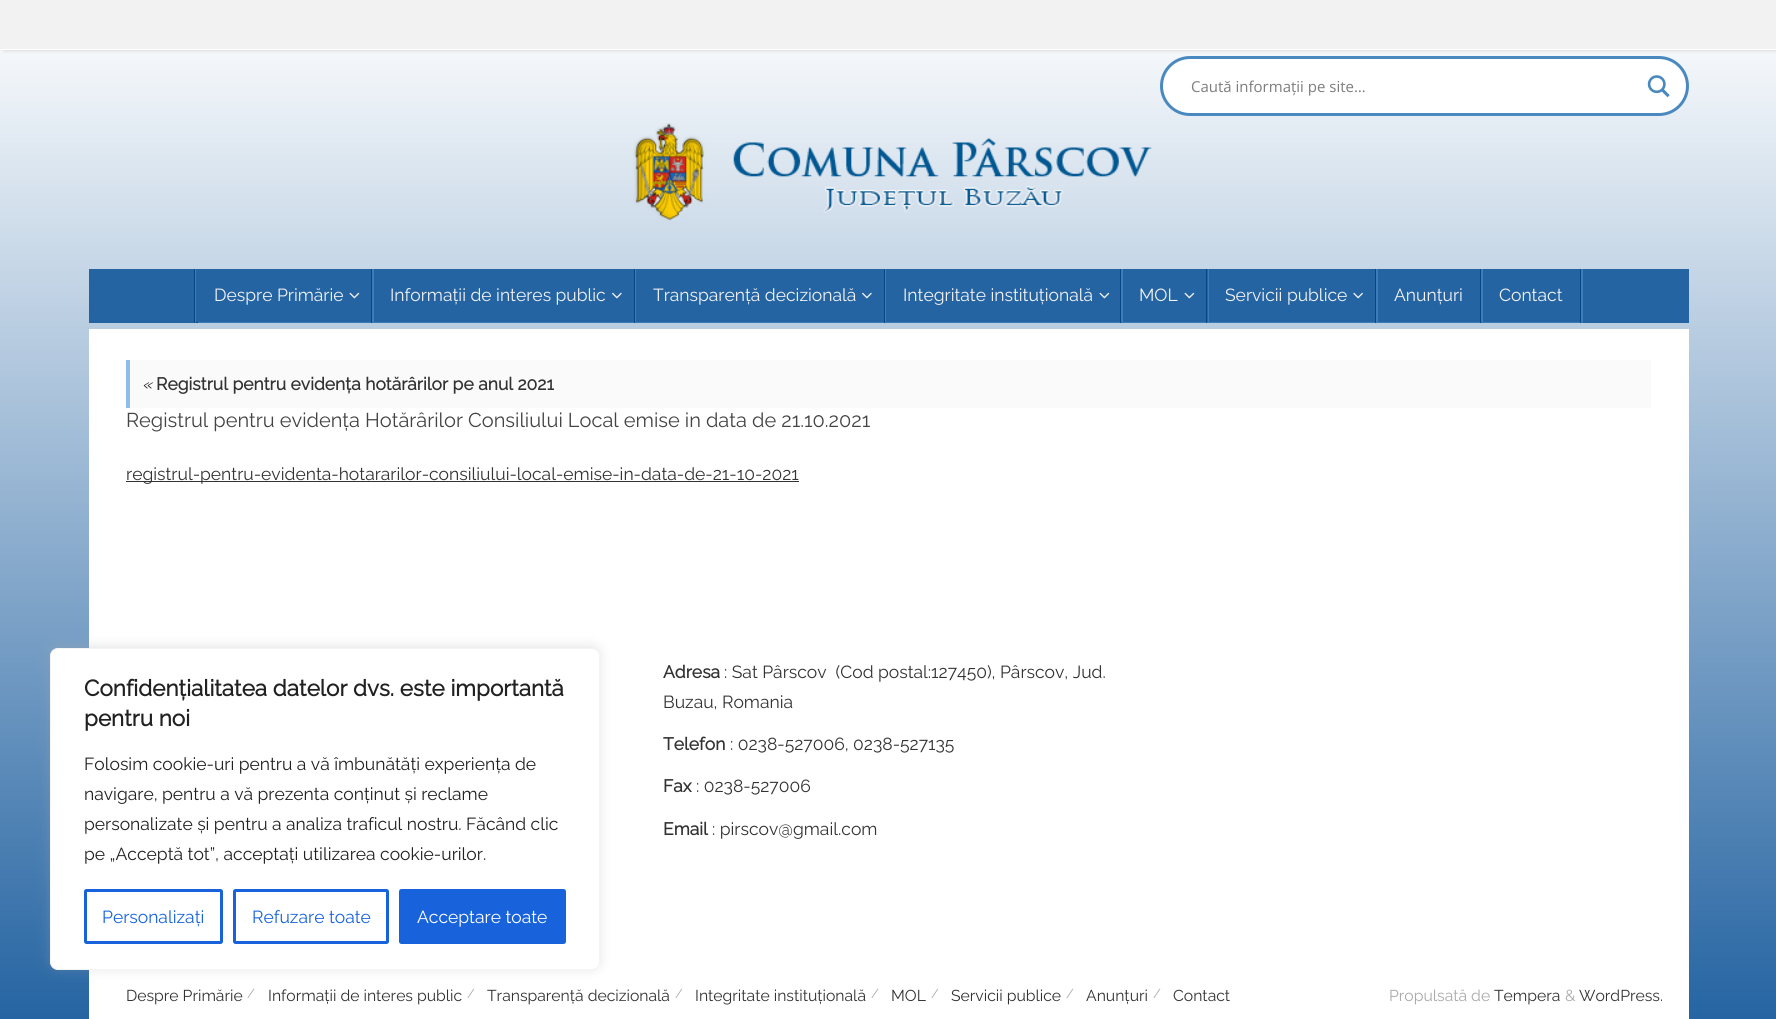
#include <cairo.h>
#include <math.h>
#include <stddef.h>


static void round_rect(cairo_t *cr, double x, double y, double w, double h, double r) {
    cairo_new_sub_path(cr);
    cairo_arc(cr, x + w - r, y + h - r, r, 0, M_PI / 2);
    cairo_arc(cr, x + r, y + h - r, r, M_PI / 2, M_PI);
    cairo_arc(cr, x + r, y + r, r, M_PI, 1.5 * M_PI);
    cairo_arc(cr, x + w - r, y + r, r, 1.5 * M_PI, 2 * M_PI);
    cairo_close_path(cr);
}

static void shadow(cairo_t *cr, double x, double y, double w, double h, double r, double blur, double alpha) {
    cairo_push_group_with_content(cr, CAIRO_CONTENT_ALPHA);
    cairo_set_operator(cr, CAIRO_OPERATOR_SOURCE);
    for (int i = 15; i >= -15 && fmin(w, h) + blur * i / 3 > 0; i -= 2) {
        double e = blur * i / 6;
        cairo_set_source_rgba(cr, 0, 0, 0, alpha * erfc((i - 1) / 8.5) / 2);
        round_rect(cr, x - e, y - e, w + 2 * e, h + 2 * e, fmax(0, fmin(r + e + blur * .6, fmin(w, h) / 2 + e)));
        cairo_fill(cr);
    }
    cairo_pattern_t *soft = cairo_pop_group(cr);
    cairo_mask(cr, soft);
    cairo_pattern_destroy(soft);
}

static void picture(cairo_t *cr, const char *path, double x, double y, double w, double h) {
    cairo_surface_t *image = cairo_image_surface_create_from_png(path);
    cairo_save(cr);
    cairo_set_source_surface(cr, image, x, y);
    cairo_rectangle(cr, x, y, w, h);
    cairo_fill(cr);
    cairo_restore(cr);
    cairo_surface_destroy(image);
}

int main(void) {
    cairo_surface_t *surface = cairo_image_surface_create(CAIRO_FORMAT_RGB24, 1776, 1019);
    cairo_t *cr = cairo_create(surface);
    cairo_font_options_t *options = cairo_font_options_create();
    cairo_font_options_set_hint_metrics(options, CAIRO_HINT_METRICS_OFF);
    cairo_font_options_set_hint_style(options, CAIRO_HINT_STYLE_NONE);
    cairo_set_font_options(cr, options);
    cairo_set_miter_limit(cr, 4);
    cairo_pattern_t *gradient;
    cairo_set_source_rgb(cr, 1, 1, 1);
    cairo_paint(cr);
    gradient = cairo_pattern_create_linear(888, 0, 888, 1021);
    cairo_pattern_add_color_stop_rgba(gradient, 0, 1, 1, 1, 1);
    cairo_pattern_add_color_stop_rgba(gradient, 1, 0.145, 0.392, 0.635, 1);
    cairo_set_source(cr, gradient);
    cairo_pattern_destroy(gradient);
    cairo_rectangle(cr, 0, 50, 1776, 969);
    cairo_fill(cr);
    cairo_set_source_rgb(cr, 0.792, 0.792, 0.792);
    shadow(cr, 4, 0, 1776, 50, 0, 2, 1);
    cairo_set_source_rgb(cr, 0.949, 0.949, 0.949);
    cairo_rectangle(cr, 0, 0, 1776, 49);
    cairo_fill(cr);
    cairo_set_source_rgb(cr, 1, 1, 1);
    cairo_rectangle(cr, 0, 49, 1776, 1);
    cairo_fill(cr);
    round_rect(cr, 1161.5, 57.5, 526, 57, 28.5);
    cairo_fill_preserve(cr);
    cairo_set_source_rgb(cr, 0.29, 0.537, 0.749);
    cairo_set_line_width(cr, 3);
    cairo_stroke(cr);
    cairo_select_font_face(cr, "Open Sans", CAIRO_FONT_SLANT_NORMAL, CAIRO_FONT_WEIGHT_NORMAL);
    cairo_set_font_size(cr, 15);
    cairo_set_source_rgb(cr, 0.49, 0.49, 0.49);
    cairo_move_to(cr, 1191, 92);
    cairo_show_text(cr, "Caută informații pe site…");
    picture(cr, "img1.png", 1647, 75, 23, 23);
    picture(cr, "img2.png", 633, 123, 519, 98);
    cairo_set_source_rgb(cr, 0.145, 0.392, 0.635);
    cairo_rectangle(cr, 89, 269, 1600, 54);
    cairo_fill(cr);
    cairo_set_source_rgb(cr, 0.027, 0.275, 0.518);
    cairo_new_path(cr);
    cairo_move_to(cr, 194, 269);
    cairo_line_to(cr, 194, 323);
    cairo_line_to(cr, 1580, 323);
    cairo_line_to(cr, 1580, 322);
    cairo_line_to(cr, 195, 322);
    cairo_line_to(cr, 195, 269);
    cairo_close_path(cr);
    cairo_fill(cr);
    cairo_set_source_rgb(cr, 0.239, 0.486, 0.729);
    cairo_rectangle(cr, 195, 269, 1, 54);
    cairo_fill(cr);
    cairo_new_path(cr);
    cairo_move_to(cr, 198, 322);
    cairo_line_to(cr, 198, 323);
    cairo_line_to(cr, 374, 323);
    cairo_line_to(cr, 374, 269);
    cairo_line_to(cr, 372, 269);
    cairo_line_to(cr, 372, 322);
    cairo_close_path(cr);
    cairo_fill(cr);
    cairo_set_source_rgb(cr, 0.027, 0.275, 0.518);
    cairo_rectangle(cr, 371, 269, 1, 54);
    cairo_fill(cr);
    cairo_select_font_face(cr, "Raleway Thin", CAIRO_FONT_SLANT_NORMAL, CAIRO_FONT_WEIGHT_NORMAL);
    cairo_set_font_size(cr, 17.5);
    cairo_set_source_rgb(cr, 0.949, 0.949, 0.949);
    cairo_move_to(cr, 214, 301);
    cairo_show_text(cr, "Despre Primărie");
    picture(cr, "img3.png", 349, 292, 11, 7);
    cairo_set_source_rgb(cr, 0.239, 0.486, 0.729);
    cairo_new_path(cr);
    cairo_move_to(cr, 374, 322);
    cairo_line_to(cr, 374, 323);
    cairo_line_to(cr, 636, 323);
    cairo_line_to(cr, 636, 269);
    cairo_line_to(cr, 635, 269);
    cairo_line_to(cr, 635, 322);
    cairo_close_path(cr);
    cairo_fill(cr);
    cairo_set_source_rgb(cr, 0.027, 0.275, 0.518);
    cairo_rectangle(cr, 634, 269, 1, 54);
    cairo_fill(cr);
    cairo_set_source_rgb(cr, 0.949, 0.949, 0.949);
    cairo_move_to(cr, 390, 301);
    cairo_show_text(cr, "Informații de interes public");
    picture(cr, "img4.png", 612, 292, 10, 7);
    cairo_set_source_rgb(cr, 0.239, 0.486, 0.729);
    cairo_new_path(cr);
    cairo_move_to(cr, 636, 322);
    cairo_line_to(cr, 636, 323);
    cairo_line_to(cr, 886, 323);
    cairo_line_to(cr, 886, 269);
    cairo_line_to(cr, 885, 269);
    cairo_line_to(cr, 885, 322);
    cairo_close_path(cr);
    cairo_fill(cr);
    cairo_set_source_rgb(cr, 0.027, 0.275, 0.518);
    cairo_rectangle(cr, 884, 269, 1, 54);
    cairo_fill(cr);
    cairo_set_source_rgb(cr, 0.949, 0.949, 0.949);
    cairo_move_to(cr, 653, 301);
    cairo_show_text(cr, "Transparență decizională");
    picture(cr, "img4.png", 862, 292, 10, 7);
    cairo_set_source_rgb(cr, 0.239, 0.486, 0.729);
    cairo_new_path(cr);
    cairo_move_to(cr, 886, 322);
    cairo_line_to(cr, 886, 323);
    cairo_line_to(cr, 1123, 323);
    cairo_line_to(cr, 1123, 269);
    cairo_line_to(cr, 1121, 269);
    cairo_line_to(cr, 1121, 322);
    cairo_close_path(cr);
    cairo_fill(cr);
    cairo_set_source_rgb(cr, 0.027, 0.275, 0.518);
    cairo_rectangle(cr, 1120, 269, 1, 54);
    cairo_fill(cr);
    cairo_set_source_rgb(cr, 0.949, 0.949, 0.949);
    cairo_move_to(cr, 903, 301);
    cairo_show_text(cr, "Integritate instituțională");
    picture(cr, "img3.png", 1099, 292, 11, 7);
    cairo_set_source_rgb(cr, 0.239, 0.486, 0.729);
    cairo_new_path(cr);
    cairo_move_to(cr, 1123, 322);
    cairo_line_to(cr, 1123, 323);
    cairo_line_to(cr, 1209, 323);
    cairo_line_to(cr, 1209, 269);
    cairo_line_to(cr, 1208, 269);
    cairo_line_to(cr, 1208, 322);
    cairo_close_path(cr);
    cairo_fill(cr);
    cairo_set_source_rgb(cr, 0.027, 0.275, 0.518);
    cairo_rectangle(cr, 1206, 269, 1, 54);
    cairo_fill(cr);
    cairo_set_source_rgb(cr, 0.949, 0.949, 0.949);
    cairo_move_to(cr, 1139, 301);
    cairo_show_text(cr, "MOL");
    picture(cr, "img3.png", 1184, 292, 11, 7);
    cairo_set_source_rgb(cr, 0.239, 0.486, 0.729);
    cairo_new_path(cr);
    cairo_move_to(cr, 1209, 322);
    cairo_line_to(cr, 1209, 323);
    cairo_line_to(cr, 1378, 323);
    cairo_line_to(cr, 1378, 269);
    cairo_line_to(cr, 1376, 269);
    cairo_line_to(cr, 1376, 322);
    cairo_close_path(cr);
    cairo_fill(cr);
    cairo_set_source_rgb(cr, 0.027, 0.275, 0.518);
    cairo_rectangle(cr, 1375, 269, 1, 54);
    cairo_fill(cr);
    cairo_set_source_rgb(cr, 0.949, 0.949, 0.949);
    cairo_move_to(cr, 1225, 301);
    cairo_show_text(cr, "Servicii publice");
    picture(cr, "img5.png", 1353, 292, 10, 7);
    cairo_set_source_rgb(cr, 0.239, 0.486, 0.729);
    cairo_new_path(cr);
    cairo_move_to(cr, 1378, 322);
    cairo_line_to(cr, 1378, 323);
    cairo_line_to(cr, 1483, 323);
    cairo_line_to(cr, 1483, 269);
    cairo_line_to(cr, 1481, 269);
    cairo_line_to(cr, 1481, 322);
    cairo_close_path(cr);
    cairo_fill(cr);
    cairo_set_source_rgb(cr, 0.027, 0.275, 0.518);
    cairo_rectangle(cr, 1480, 269, 1, 54);
    cairo_fill(cr);
    cairo_set_source_rgb(cr, 0.949, 0.949, 0.949);
    cairo_move_to(cr, 1394, 301);
    cairo_show_text(cr, "Anunțuri");
    cairo_set_source_rgb(cr, 0.239, 0.486, 0.729);
    cairo_new_path(cr);
    cairo_move_to(cr, 1483, 322);
    cairo_line_to(cr, 1483, 323);
    cairo_line_to(cr, 1583, 323);
    cairo_line_to(cr, 1583, 269);
    cairo_line_to(cr, 1581, 269);
    cairo_line_to(cr, 1581, 322);
    cairo_close_path(cr);
    cairo_fill(cr);
    cairo_set_source_rgb(cr, 0.027, 0.275, 0.518);
    cairo_rectangle(cr, 1580, 269, 1, 54);
    cairo_fill(cr);
    cairo_set_source_rgb(cr, 0.949, 0.949, 0.949);
    cairo_move_to(cr, 1499, 301);
    cairo_show_text(cr, "Contact");
    cairo_set_source_rgb(cr, 1, 1, 1);
    cairo_rectangle(cr, 89, 329, 1600, 690);
    cairo_fill(cr);
    cairo_set_source_rgb(cr, 0.98, 0.98, 0.98);
    cairo_rectangle(cr, 130, 360, 1521, 48);
    cairo_fill(cr);
    cairo_set_source_rgb(cr, 0.549, 0.741, 0.929);
    cairo_rectangle(cr, 126, 360, 4, 48);
    cairo_fill(cr);
    cairo_select_font_face(cr, "Raleway Thin", CAIRO_FONT_SLANT_ITALIC, CAIRO_FONT_WEIGHT_NORMAL);
    cairo_set_source_rgb(cr, 0.2, 0.2, 0.2);
    cairo_move_to(cr, 142, 390);
    cairo_show_text(cr, "«");
    cairo_select_font_face(cr, "Raleway", CAIRO_FONT_SLANT_NORMAL, CAIRO_FONT_WEIGHT_BOLD);
    cairo_move_to(cr, 156, 390);
    cairo_show_text(cr, "Registrul pentru evidența hotărârilor pe anul 2021");
    cairo_select_font_face(cr, "Raleway Thin", CAIRO_FONT_SLANT_NORMAL, CAIRO_FONT_WEIGHT_NORMAL);
    cairo_set_font_size(cr, 20);
    cairo_set_source_rgb(cr, 0.267, 0.267, 0.267);
    cairo_move_to(cr, 126, 427);
    cairo_show_text(cr, "Registrul pentru evidența Hotărârilor Consiliului Local emise in data de 21.10.2021");
    cairo_set_source_rgb(cr, 0.2, 0.2, 0.2);
    cairo_rectangle(cr, 126, 481, 673, 1);
    cairo_fill(cr);
    cairo_set_font_size(cr, 17.5);
    cairo_move_to(cr, 126, 480);
    cairo_show_text(cr, "registrul-pentru-evidenta-hotararilor-consiliului-local-emise-in-data-de-21-10-2021");
    cairo_select_font_face(cr, "Raleway", CAIRO_FONT_SLANT_NORMAL, CAIRO_FONT_WEIGHT_BOLD);
    cairo_move_to(cr, 663, 678);
    cairo_show_text(cr, "Adresa");
    cairo_select_font_face(cr, "Raleway Thin", CAIRO_FONT_SLANT_NORMAL, CAIRO_FONT_WEIGHT_NORMAL);
    cairo_move_to(cr, 724, 678);
    cairo_show_text(cr, ": Sat Pârscov  (Cod postal:127450), Pârscov, Jud.");
    cairo_move_to(cr, 663, 708);
    cairo_show_text(cr, "Buzau, Romania");
    cairo_select_font_face(cr, "Raleway", CAIRO_FONT_SLANT_NORMAL, CAIRO_FONT_WEIGHT_BOLD);
    cairo_move_to(cr, 663, 750);
    cairo_show_text(cr, "Telefon");
    cairo_select_font_face(cr, "Raleway Thin", CAIRO_FONT_SLANT_NORMAL, CAIRO_FONT_WEIGHT_NORMAL);
    cairo_move_to(cr, 730, 750);
    cairo_show_text(cr, ": 0238-527006, 0238-527135");
    cairo_select_font_face(cr, "Raleway", CAIRO_FONT_SLANT_NORMAL, CAIRO_FONT_WEIGHT_BOLD);
    cairo_move_to(cr, 663, 792);
    cairo_show_text(cr, "Fax");
    cairo_select_font_face(cr, "Raleway Thin", CAIRO_FONT_SLANT_NORMAL, CAIRO_FONT_WEIGHT_NORMAL);
    cairo_move_to(cr, 696, 792);
    cairo_show_text(cr, ": 0238-527006");
    cairo_select_font_face(cr, "Raleway", CAIRO_FONT_SLANT_NORMAL, CAIRO_FONT_WEIGHT_BOLD);
    cairo_move_to(cr, 663, 835);
    cairo_show_text(cr, "Email");
    cairo_select_font_face(cr, "Raleway Thin", CAIRO_FONT_SLANT_NORMAL, CAIRO_FONT_WEIGHT_NORMAL);
    cairo_move_to(cr, 712, 835);
    cairo_show_text(cr, ": pirscov@gmail.com");
    cairo_set_font_size(cr, 15.75);
    cairo_move_to(cr, 126, 1001);
    cairo_show_text(cr, "Despre Primărie");
    cairo_set_font_size(cr, 13);
    cairo_set_source_rgb(cr, 0.667, 0.667, 0.667);
    cairo_move_to(cr, 247, 998);
    cairo_show_text(cr, "/");
    cairo_set_font_size(cr, 15.75);
    cairo_set_source_rgb(cr, 0.2, 0.2, 0.2);
    cairo_move_to(cr, 268, 1001);
    cairo_show_text(cr, "Informații de interes public");
    cairo_set_font_size(cr, 13);
    cairo_set_source_rgb(cr, 0.667, 0.667, 0.667);
    cairo_move_to(cr, 467, 998);
    cairo_show_text(cr, "/");
    cairo_set_font_size(cr, 15.75);
    cairo_set_source_rgb(cr, 0.2, 0.2, 0.2);
    cairo_move_to(cr, 487, 1001);
    cairo_show_text(cr, "Transparență decizională");
    cairo_set_font_size(cr, 13);
    cairo_set_source_rgb(cr, 0.667, 0.667, 0.667);
    cairo_move_to(cr, 675, 998);
    cairo_show_text(cr, "/");
    cairo_set_font_size(cr, 15.75);
    cairo_set_source_rgb(cr, 0.2, 0.2, 0.2);
    cairo_move_to(cr, 695, 1001);
    cairo_show_text(cr, "Integritate instituțională");
    cairo_set_font_size(cr, 13);
    cairo_set_source_rgb(cr, 0.667, 0.667, 0.667);
    cairo_move_to(cr, 871, 998);
    cairo_show_text(cr, "/");
    cairo_set_font_size(cr, 15.75);
    cairo_set_source_rgb(cr, 0.2, 0.2, 0.2);
    cairo_move_to(cr, 891, 1001);
    cairo_show_text(cr, "MOL");
    cairo_set_font_size(cr, 13);
    cairo_set_source_rgb(cr, 0.667, 0.667, 0.667);
    cairo_move_to(cr, 931, 998);
    cairo_show_text(cr, "/");
    cairo_set_font_size(cr, 15.75);
    cairo_set_source_rgb(cr, 0.2, 0.2, 0.2);
    cairo_move_to(cr, 951, 1001);
    cairo_show_text(cr, "Servicii publice");
    cairo_set_font_size(cr, 13);
    cairo_set_source_rgb(cr, 0.667, 0.667, 0.667);
    cairo_move_to(cr, 1066, 998);
    cairo_show_text(cr, "/");
    cairo_set_font_size(cr, 15.75);
    cairo_set_source_rgb(cr, 0.2, 0.2, 0.2);
    cairo_move_to(cr, 1086, 1001);
    cairo_show_text(cr, "Anunțuri");
    cairo_set_font_size(cr, 13);
    cairo_set_source_rgb(cr, 0.667, 0.667, 0.667);
    cairo_move_to(cr, 1153, 998);
    cairo_show_text(cr, "/");
    cairo_set_font_size(cr, 15.75);
    cairo_set_source_rgb(cr, 0.2, 0.2, 0.2);
    cairo_move_to(cr, 1173, 1001);
    cairo_show_text(cr, "Contact");
    cairo_set_source_rgb(cr, 0.667, 0.667, 0.667);
    cairo_move_to(cr, 1389, 1001);
    cairo_show_text(cr, "Propulsată de");
    cairo_set_source_rgb(cr, 0.2, 0.2, 0.2);
    cairo_move_to(cr, 1494, 1001);
    cairo_show_text(cr, "Tempera");
    cairo_set_source_rgb(cr, 0.667, 0.667, 0.667);
    cairo_move_to(cr, 1565, 1001);
    cairo_show_text(cr, "&");
    cairo_set_source_rgb(cr, 0.2, 0.2, 0.2);
    cairo_move_to(cr, 1579, 1001);
    cairo_show_text(cr, "WordPress.");
    cairo_set_source_rgb(cr, 0.675, 0.671, 0.671);
    shadow(cr, 50, 646, 550, 323, 8, 6, 0.3);
    cairo_set_source_rgb(cr, 1, 1, 1);
    round_rect(cr, 50.5, 648.5, 549, 321, 7.5);
    cairo_fill_preserve(cr);
    cairo_set_source_rgb(cr, 0.957, 0.957, 0.957);
    cairo_set_line_width(cr, 1);
    cairo_stroke(cr);
    cairo_select_font_face(cr, "Raleway", CAIRO_FONT_SLANT_NORMAL, CAIRO_FONT_WEIGHT_BOLD);
    cairo_set_font_size(cr, 22.5);
    cairo_set_source_rgb(cr, 0.129, 0.129, 0.129);
    cairo_move_to(cr, 84, 696);
    cairo_show_text(cr, "Confidențialitatea datelor dvs. este importantă");
    cairo_move_to(cr, 84, 726);
    cairo_show_text(cr, "pentru noi");
    cairo_select_font_face(cr, "Raleway Thin", CAIRO_FONT_SLANT_NORMAL, CAIRO_FONT_WEIGHT_NORMAL);
    cairo_set_font_size(cr, 17.5);
    cairo_move_to(cr, 84, 770);
    cairo_show_text(cr, "Folosim cookie-uri pentru a vă îmbunătăți experiența de");
    cairo_move_to(cr, 84, 800);
    cairo_show_text(cr, "navigare, pentru a vă prezenta conținut și reclame");
    cairo_move_to(cr, 84, 830);
    cairo_show_text(cr, "personalizate și pentru a analiza traficul nostru. Făcând clic");
    cairo_move_to(cr, 84, 860);
    cairo_show_text(cr, "pe „Acceptă tot”, acceptați utilizarea cookie-urilor.");
    round_rect(cr, 85.5, 890.5, 136, 52, 1);
    cairo_set_source_rgb(cr, 0.094, 0.388, 0.863);
    cairo_set_line_width(cr, 3);
    cairo_stroke(cr);
    cairo_move_to(cr, 102, 923);
    cairo_show_text(cr, "Personalizați");
    round_rect(cr, 234.5, 890.5, 153, 52, 1);
    cairo_stroke(cr);
    cairo_move_to(cr, 252, 923);
    cairo_show_text(cr, "Refuzare toate");
    round_rect(cr, 400.5, 890.5, 164, 52, 1);
    cairo_fill_preserve(cr);
    cairo_stroke(cr);
    cairo_set_source_rgb(cr, 1, 1, 1);
    cairo_move_to(cr, 417, 923);
    cairo_show_text(cr, "Acceptare toate");
    cairo_surface_write_to_png(surface, "page.png");
    cairo_font_options_destroy(options);
    cairo_destroy(cr);
    cairo_surface_destroy(surface);
    return 0;
}
